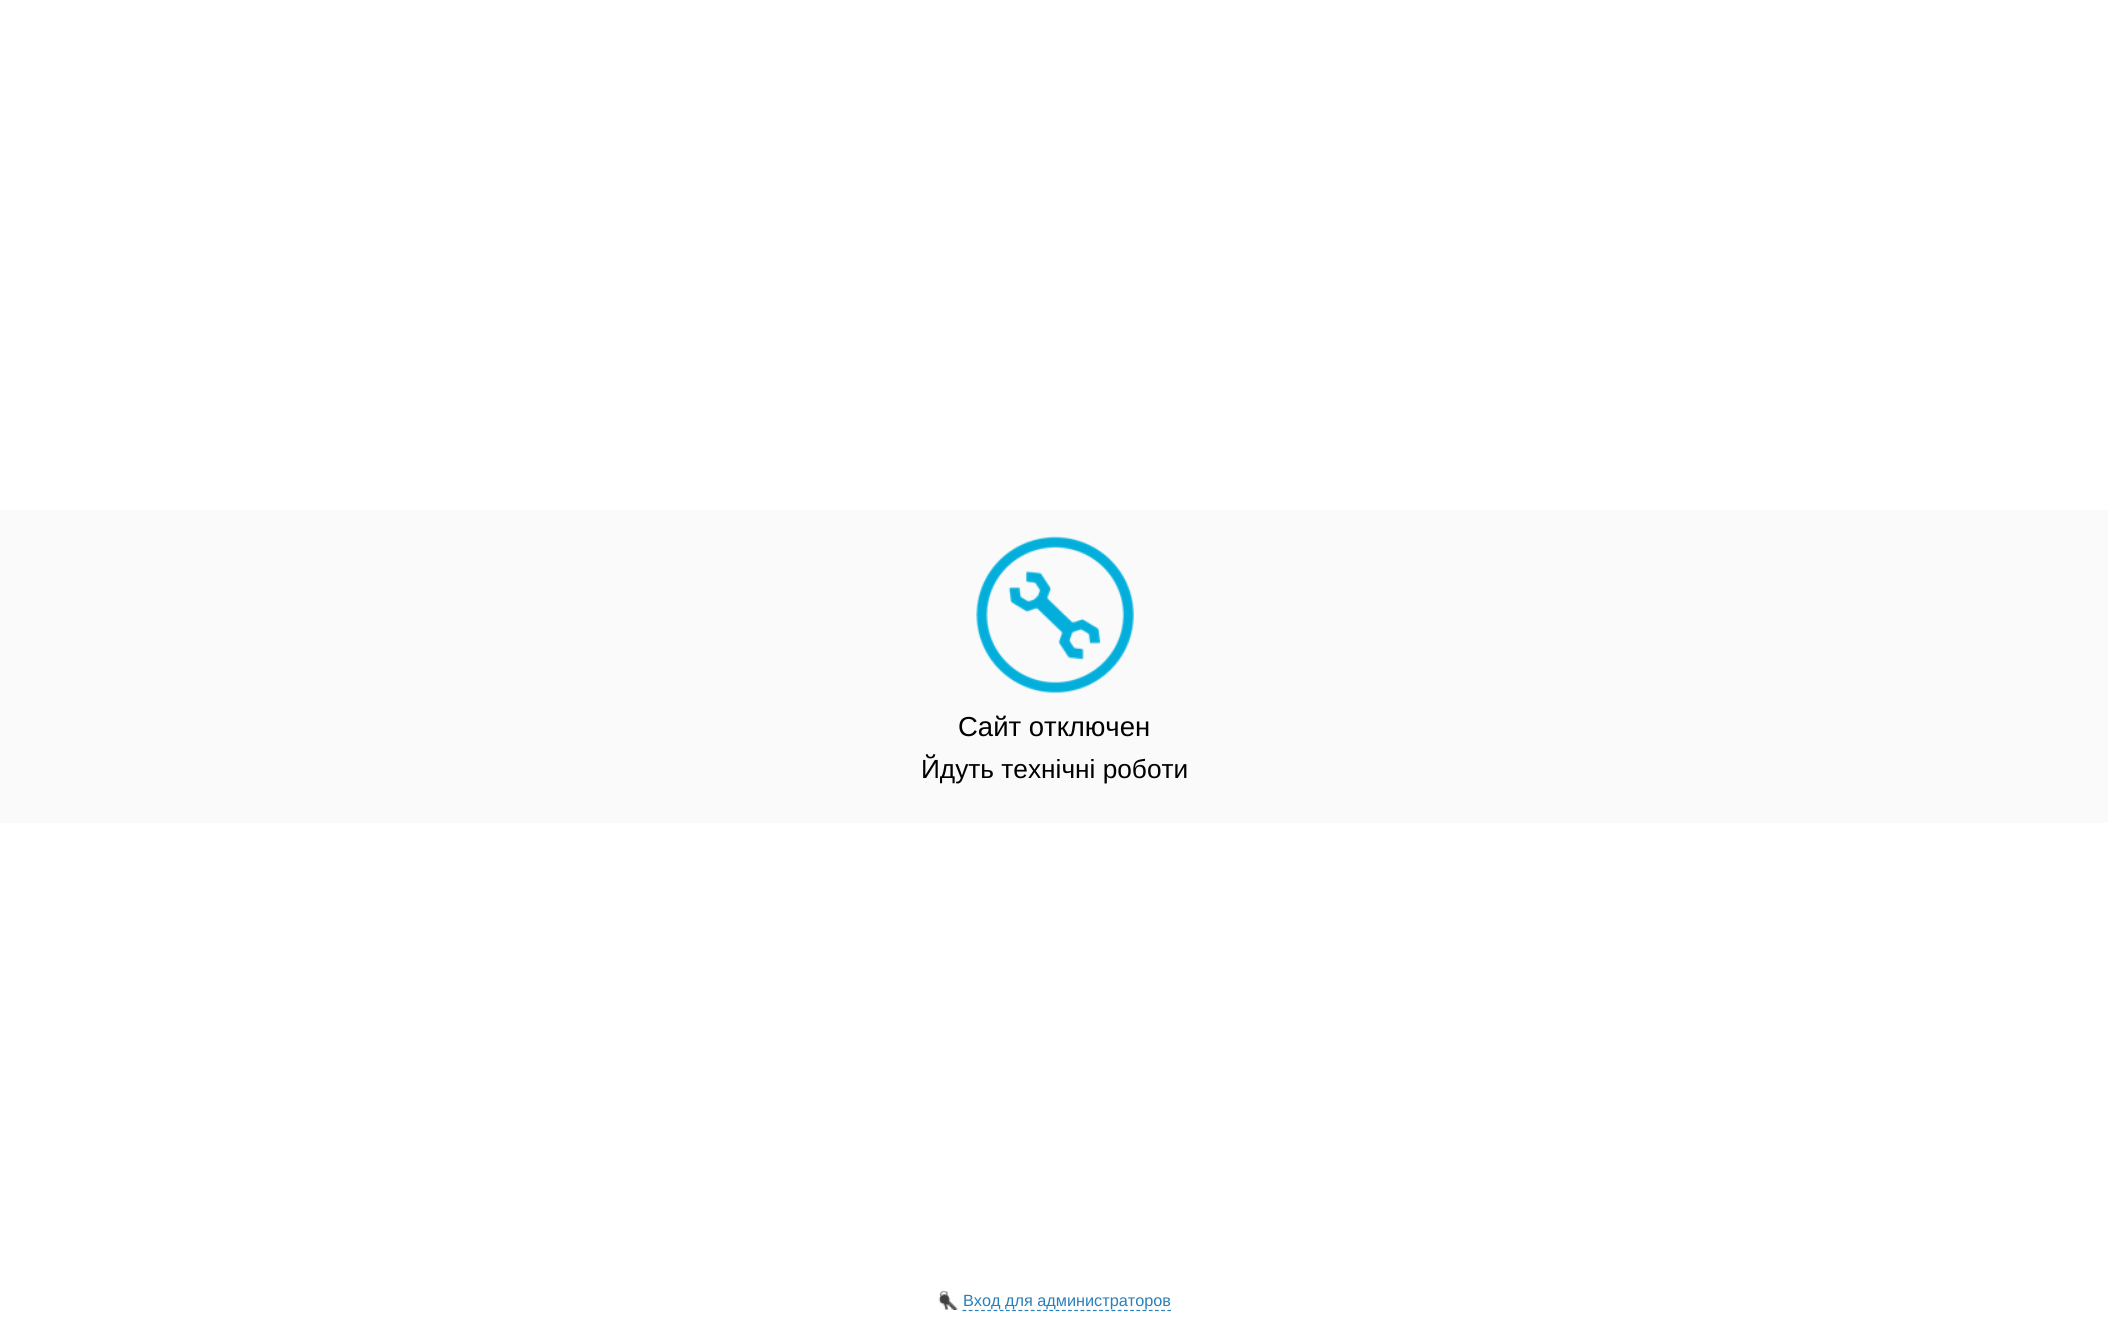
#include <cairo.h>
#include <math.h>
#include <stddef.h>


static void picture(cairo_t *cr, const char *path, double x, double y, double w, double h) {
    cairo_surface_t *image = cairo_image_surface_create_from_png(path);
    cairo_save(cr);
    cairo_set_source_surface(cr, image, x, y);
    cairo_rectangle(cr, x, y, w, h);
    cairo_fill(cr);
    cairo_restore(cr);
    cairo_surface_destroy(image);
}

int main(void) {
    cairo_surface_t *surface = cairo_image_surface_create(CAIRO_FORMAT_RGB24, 2108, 1332);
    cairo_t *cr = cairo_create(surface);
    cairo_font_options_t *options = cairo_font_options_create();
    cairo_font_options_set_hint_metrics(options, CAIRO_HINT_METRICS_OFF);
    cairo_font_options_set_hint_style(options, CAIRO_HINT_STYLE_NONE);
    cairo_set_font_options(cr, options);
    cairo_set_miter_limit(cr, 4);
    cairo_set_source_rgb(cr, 1, 1, 1);
    cairo_paint(cr);
    cairo_set_source_rgb(cr, 0.98, 0.98, 0.98);
    cairo_rectangle(cr, 0, 510, 2108, 313);
    cairo_fill(cr);
    picture(cr, "img1.png", 976, 536, 158, 158);
    cairo_select_font_face(cr, "Liberation Sans", CAIRO_FONT_SLANT_NORMAL, CAIRO_FONT_WEIGHT_NORMAL);
    cairo_set_font_size(cr, 27.5);
    cairo_set_source_rgb(cr, 0, 0, 0);
    cairo_move_to(cr, 958, 736);
    cairo_show_text(cr, "Сайт отключен");
    cairo_set_font_size(cr, 26.25);
    cairo_move_to(cr, 921, 778);
    cairo_show_text(cr, "Йдуть технічні роботи");
    picture(cr, "img2.png", 938, 1291, 20, 19);
    cairo_new_path(cr);
    cairo_move_to(cr, 962.5, 1310.5);
    cairo_line_to(cr, 1171, 1310.5);
    cairo_set_source_rgb(cr, 0.161, 0.502, 0.725);
    cairo_set_line_width(cr, 1.2);
    cairo_set_dash(cr, (double[]){3.75, 2.46}, 2, 0);
    cairo_stroke(cr);
    cairo_set_font_size(cr, 16.25);
    cairo_move_to(cr, 963, 1306);
    cairo_show_text(cr, "Вход для администраторов");
    cairo_surface_write_to_png(surface, "page.png");
    cairo_font_options_destroy(options);
    cairo_destroy(cr);
    cairo_surface_destroy(surface);
    return 0;
}
